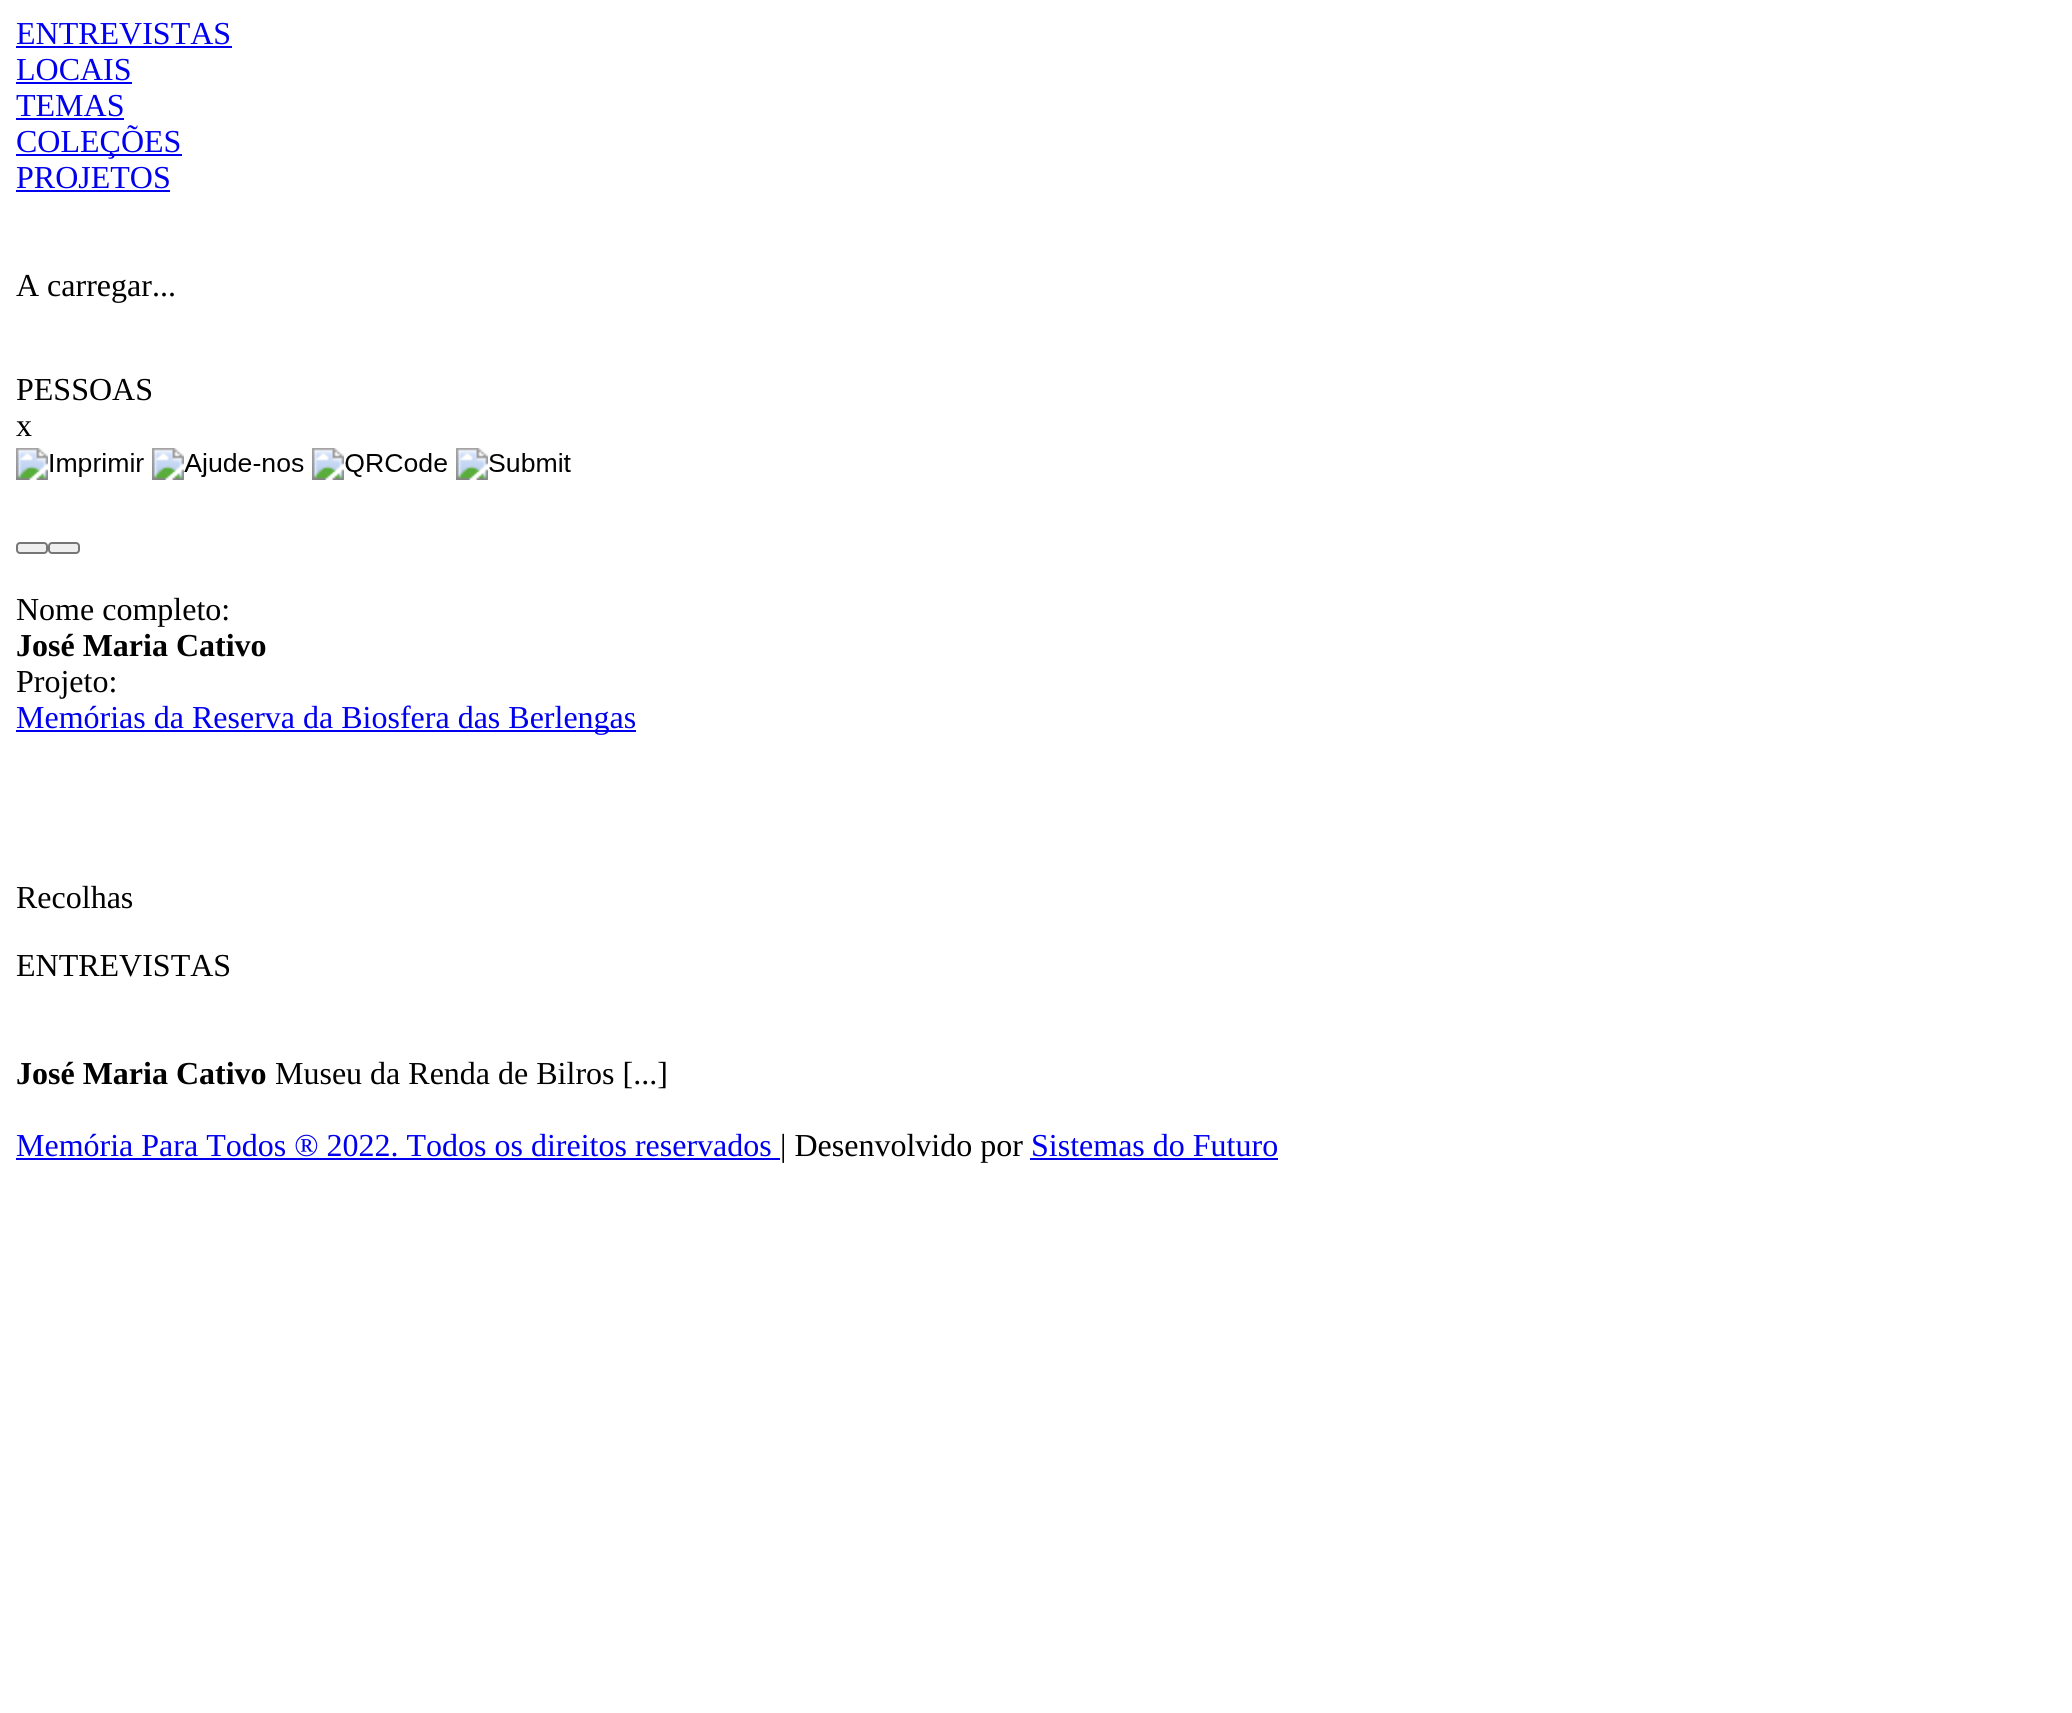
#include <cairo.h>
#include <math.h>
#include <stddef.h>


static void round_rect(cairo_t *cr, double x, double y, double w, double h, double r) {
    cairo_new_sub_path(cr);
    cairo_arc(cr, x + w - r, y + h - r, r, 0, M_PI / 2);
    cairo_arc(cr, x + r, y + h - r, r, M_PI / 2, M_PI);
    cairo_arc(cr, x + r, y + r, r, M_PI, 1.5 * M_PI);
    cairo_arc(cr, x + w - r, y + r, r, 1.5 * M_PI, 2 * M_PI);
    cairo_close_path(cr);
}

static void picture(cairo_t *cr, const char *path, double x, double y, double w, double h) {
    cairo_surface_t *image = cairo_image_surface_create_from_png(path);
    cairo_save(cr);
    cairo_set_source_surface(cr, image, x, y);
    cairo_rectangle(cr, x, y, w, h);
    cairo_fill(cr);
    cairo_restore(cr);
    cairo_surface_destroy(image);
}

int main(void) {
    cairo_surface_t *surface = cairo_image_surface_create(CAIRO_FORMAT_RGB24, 2072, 1713);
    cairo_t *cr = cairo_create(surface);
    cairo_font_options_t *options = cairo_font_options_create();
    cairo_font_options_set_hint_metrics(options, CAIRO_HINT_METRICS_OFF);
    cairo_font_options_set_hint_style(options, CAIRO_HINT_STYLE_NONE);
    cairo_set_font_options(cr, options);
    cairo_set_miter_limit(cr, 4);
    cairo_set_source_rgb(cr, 1, 1, 1);
    cairo_paint(cr);
    cairo_select_font_face(cr, "Liberation Serif", CAIRO_FONT_SLANT_NORMAL, CAIRO_FONT_WEIGHT_NORMAL);
    cairo_set_font_size(cr, 32);
    cairo_set_source_rgb(cr, 0, 0, 0.933);
    cairo_move_to(cr, 16, 44);
    cairo_show_text(cr, "ENTREVISTAS");
    cairo_rectangle(cr, 16, 46, 216, 2);
    cairo_fill(cr);
    cairo_move_to(cr, 16, 80);
    cairo_show_text(cr, "LOCAIS");
    cairo_rectangle(cr, 16, 82, 116, 2);
    cairo_fill(cr);
    cairo_move_to(cr, 16, 116);
    cairo_show_text(cr, "TEMAS");
    cairo_rectangle(cr, 16, 118, 108, 2);
    cairo_fill(cr);
    cairo_rectangle(cr, 16, 154, 166, 2);
    cairo_fill(cr);
    cairo_move_to(cr, 16, 152);
    cairo_show_text(cr, "COLEÇÕES");
    cairo_move_to(cr, 16, 188);
    cairo_show_text(cr, "PROJETOS");
    cairo_rectangle(cr, 16, 190, 154, 2);
    cairo_fill(cr);
    cairo_set_source_rgb(cr, 0, 0, 0);
    cairo_move_to(cr, 16, 296);
    cairo_show_text(cr, "A carregar...");
    cairo_move_to(cr, 16, 400);
    cairo_show_text(cr, "PESSOAS");
    cairo_move_to(cr, 16, 436);
    cairo_show_text(cr, "x");
    picture(cr, "img1.png", 16, 448, 128, 32);
    picture(cr, "img2.png", 152, 448, 152, 32);
    picture(cr, "img3.png", 312, 448, 135, 32);
    picture(cr, "img4.png", 456, 448, 115, 32);
    cairo_set_source_rgb(cr, 0.937, 0.937, 0.937);
    round_rect(cr, 17, 543, 30, 10, 3);
    cairo_fill_preserve(cr);
    cairo_set_source_rgb(cr, 0.463, 0.463, 0.463);
    cairo_stroke(cr);
    cairo_set_source_rgb(cr, 0.937, 0.937, 0.937);
    round_rect(cr, 49, 543, 30, 10, 3);
    cairo_fill_preserve(cr);
    cairo_set_source_rgb(cr, 0.463, 0.463, 0.463);
    cairo_stroke(cr);
    cairo_set_source_rgb(cr, 0, 0, 0);
    cairo_move_to(cr, 16, 620);
    cairo_show_text(cr, "Nome completo:");
    cairo_select_font_face(cr, "Liberation Serif", CAIRO_FONT_SLANT_NORMAL, CAIRO_FONT_WEIGHT_BOLD);
    cairo_move_to(cr, 16, 656);
    cairo_show_text(cr, "José Maria Cativo");
    cairo_select_font_face(cr, "Liberation Serif", CAIRO_FONT_SLANT_NORMAL, CAIRO_FONT_WEIGHT_NORMAL);
    cairo_move_to(cr, 16, 692);
    cairo_show_text(cr, "Projeto:");
    cairo_set_source_rgb(cr, 0, 0, 0.933);
    cairo_rectangle(cr, 16, 730, 620, 2);
    cairo_fill(cr);
    cairo_move_to(cr, 16, 728);
    cairo_show_text(cr, "Memórias da Reserva da Biosfera das Berlengas");
    cairo_set_source_rgb(cr, 0, 0, 0);
    cairo_move_to(cr, 16, 908);
    cairo_show_text(cr, "Recolhas");
    cairo_move_to(cr, 16, 976);
    cairo_show_text(cr, "ENTREVISTAS");
    cairo_select_font_face(cr, "Liberation Serif", CAIRO_FONT_SLANT_NORMAL, CAIRO_FONT_WEIGHT_BOLD);
    cairo_move_to(cr, 16, 1084);
    cairo_show_text(cr, "José Maria Cativo");
    cairo_select_font_face(cr, "Liberation Serif", CAIRO_FONT_SLANT_NORMAL, CAIRO_FONT_WEIGHT_NORMAL);
    cairo_move_to(cr, 275, 1084);
    cairo_show_text(cr, "Museu da Renda de Bilros [...]");
    cairo_set_source_rgb(cr, 0, 0, 0.933);
    cairo_move_to(cr, 16, 1156);
    cairo_show_text(cr, "Memória Para Todos ® 2022. Todos os direitos reservados");
    cairo_rectangle(cr, 16, 1158, 764, 2);
    cairo_fill(cr);
    cairo_set_source_rgb(cr, 0, 0, 0);
    cairo_move_to(cr, 780, 1156);
    cairo_show_text(cr, "| Desenvolvido por");
    cairo_set_source_rgb(cr, 0, 0, 0.933);
    cairo_move_to(cr, 1031, 1156);
    cairo_show_text(cr, "Sistemas do Futuro");
    cairo_rectangle(cr, 1030, 1158, 248, 2);
    cairo_fill(cr);
    cairo_surface_write_to_png(surface, "page.png");
    cairo_font_options_destroy(options);
    cairo_destroy(cr);
    cairo_surface_destroy(surface);
    return 0;
}
